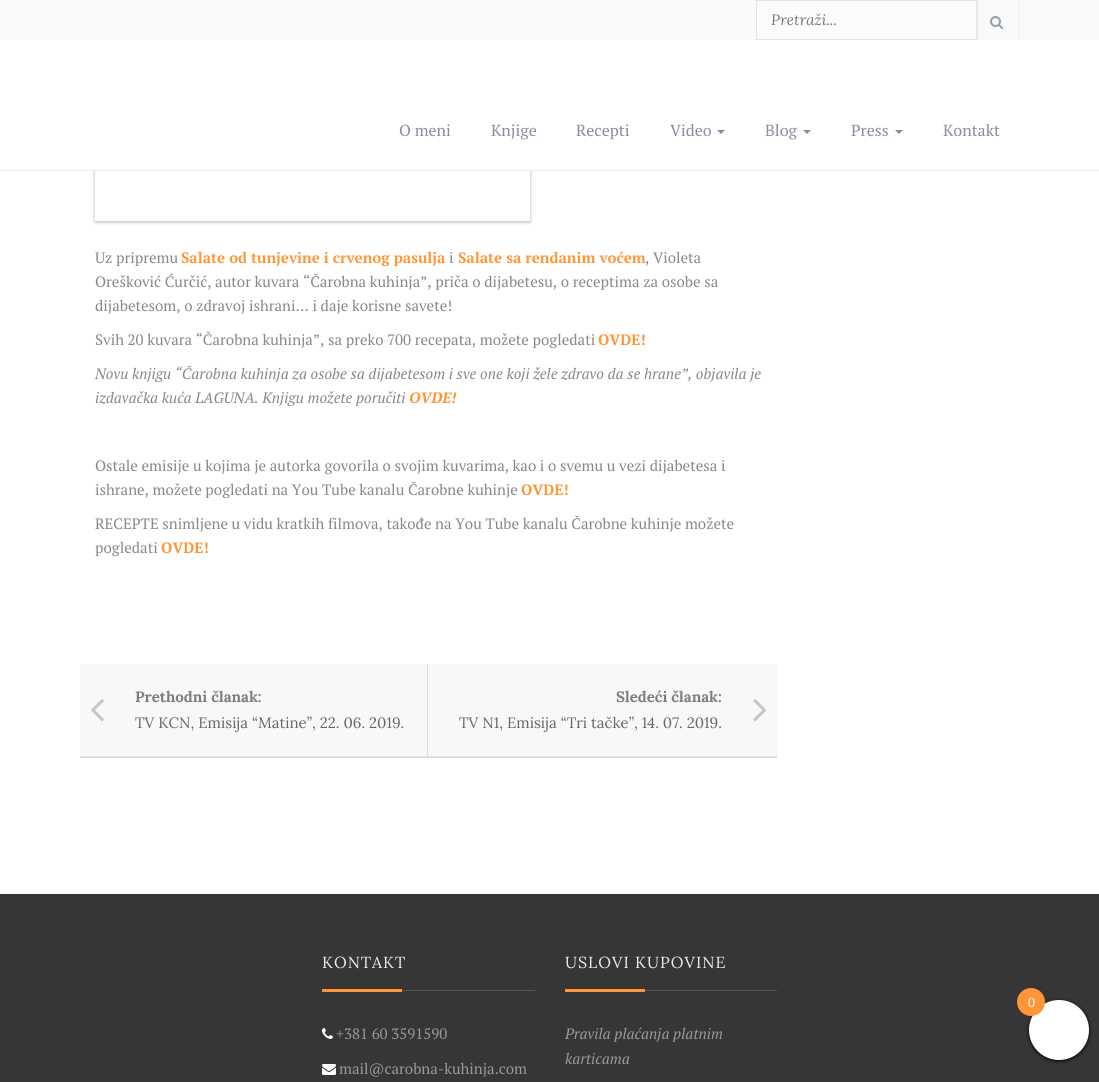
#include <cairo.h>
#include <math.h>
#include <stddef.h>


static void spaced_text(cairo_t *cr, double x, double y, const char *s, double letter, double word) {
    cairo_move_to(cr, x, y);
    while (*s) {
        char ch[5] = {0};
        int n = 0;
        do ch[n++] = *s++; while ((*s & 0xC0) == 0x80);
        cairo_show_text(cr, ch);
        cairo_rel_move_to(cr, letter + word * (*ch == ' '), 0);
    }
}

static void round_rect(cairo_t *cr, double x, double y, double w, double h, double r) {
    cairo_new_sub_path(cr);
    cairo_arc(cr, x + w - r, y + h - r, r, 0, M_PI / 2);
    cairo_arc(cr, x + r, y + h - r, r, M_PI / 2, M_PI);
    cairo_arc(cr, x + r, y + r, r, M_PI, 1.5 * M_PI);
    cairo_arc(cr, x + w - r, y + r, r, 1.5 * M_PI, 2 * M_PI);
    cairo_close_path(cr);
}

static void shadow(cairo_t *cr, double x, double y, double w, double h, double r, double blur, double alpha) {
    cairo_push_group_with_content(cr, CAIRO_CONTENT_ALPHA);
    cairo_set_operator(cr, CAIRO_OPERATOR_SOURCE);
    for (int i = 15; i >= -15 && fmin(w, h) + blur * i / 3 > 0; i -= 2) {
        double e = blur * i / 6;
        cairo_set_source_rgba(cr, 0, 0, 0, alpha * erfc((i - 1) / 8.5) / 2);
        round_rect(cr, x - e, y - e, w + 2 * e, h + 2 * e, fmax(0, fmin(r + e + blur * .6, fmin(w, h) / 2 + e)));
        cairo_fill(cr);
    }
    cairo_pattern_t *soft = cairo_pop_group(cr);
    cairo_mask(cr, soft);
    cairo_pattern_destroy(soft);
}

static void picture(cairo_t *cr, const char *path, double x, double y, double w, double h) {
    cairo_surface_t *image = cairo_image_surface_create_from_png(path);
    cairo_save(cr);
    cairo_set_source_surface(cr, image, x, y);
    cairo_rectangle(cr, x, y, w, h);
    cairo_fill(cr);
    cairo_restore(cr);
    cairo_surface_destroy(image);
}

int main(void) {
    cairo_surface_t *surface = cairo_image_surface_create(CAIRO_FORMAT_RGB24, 1099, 1082);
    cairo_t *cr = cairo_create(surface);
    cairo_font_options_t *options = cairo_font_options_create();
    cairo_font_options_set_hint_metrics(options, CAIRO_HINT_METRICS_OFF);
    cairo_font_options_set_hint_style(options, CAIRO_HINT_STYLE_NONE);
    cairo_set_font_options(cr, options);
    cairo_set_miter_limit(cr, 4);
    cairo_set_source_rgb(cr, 1, 1, 1);
    cairo_paint(cr);
    cairo_save(cr);
    cairo_set_fill_rule(cr, CAIRO_FILL_RULE_EVEN_ODD);
    cairo_new_path(cr);
    cairo_move_to(cr, 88, 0);
    cairo_line_to(cr, 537, 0);
    cairo_line_to(cr, 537, 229);
    cairo_line_to(cr, 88, 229);
    cairo_close_path(cr);
    cairo_move_to(cr, 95, -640);
    cairo_line_to(cr, 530, -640);
    cairo_line_to(cr, 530, 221);
    cairo_line_to(cr, 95, 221);
    cairo_close_path(cr);
    cairo_clip(cr);
    cairo_set_source_rgb(cr, 0, 0, 0);
    shadow(cr, 95, -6, 435, 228, 0, 2, 0.3);
    cairo_restore(cr);
    cairo_set_source_rgb(cr, 0.976, 0.976, 0.976);
    cairo_rectangle(cr, 0, 0, 1099, 40);
    cairo_fill(cr);
    cairo_set_source_rgb(cr, 0.988, 0.988, 0.988);
    cairo_rectangle(cr, 756.5, 0.5, 220, 39);
    cairo_fill_preserve(cr);
    cairo_set_source_rgb(cr, 0.875, 0.898, 0.906);
    cairo_set_line_width(cr, 1);
    cairo_stroke(cr);
    cairo_select_font_face(cr, "Lora", CAIRO_FONT_SLANT_ITALIC, CAIRO_FONT_WEIGHT_NORMAL);
    cairo_set_font_size(cr, 15);
    cairo_set_source_rgb(cr, 0.467, 0.467, 0.467);
    cairo_move_to(cr, 771, 25);
    cairo_show_text(cr, "Pretraži...");
    cairo_set_source_rgb(cr, 0.933, 0.933, 0.933);
    cairo_rectangle(cr, 1019, 0, 1, 40);
    cairo_fill(cr);
    cairo_rectangle(cr, 977, 0, 1, 40);
    cairo_fill(cr);
    picture(cr, "img1.png", 990, 16, 13, 13);
    cairo_set_source_rgb(cr, 1, 1, 1);
    cairo_rectangle(cr, 91, 40, 443, 130);
    cairo_fill(cr);
    cairo_set_source_rgb(cr, 0.933, 0.933, 0.933);
    cairo_rectangle(cr, 0, 170, 1099, 1);
    cairo_fill(cr);
    cairo_select_font_face(cr, "PT Serif", CAIRO_FONT_SLANT_NORMAL, CAIRO_FONT_WEIGHT_NORMAL);
    cairo_set_font_size(cr, 16);
    cairo_set_source_rgb(cr, 0.537, 0.545, 0.635);
    cairo_move_to(cr, 399, 136);
    cairo_show_text(cr, "O meni");
    cairo_move_to(cr, 491, 136);
    cairo_show_text(cr, "Knjige");
    cairo_move_to(cr, 576, 136);
    cairo_show_text(cr, "Recepti");
    cairo_move_to(cr, 670, 136);
    cairo_show_text(cr, "Video");
    cairo_new_path(cr);
    cairo_move_to(cr, 717, 130);
    cairo_line_to(cr, 725, 130);
    cairo_line_to(cr, 721, 134);
    cairo_close_path(cr);
    cairo_fill(cr);
    cairo_move_to(cr, 765, 136);
    cairo_show_text(cr, "Blog");
    cairo_new_path(cr);
    cairo_move_to(cr, 803, 130);
    cairo_line_to(cr, 811, 130);
    cairo_line_to(cr, 807, 134);
    cairo_close_path(cr);
    cairo_fill(cr);
    cairo_move_to(cr, 851, 136);
    cairo_show_text(cr, "Press");
    cairo_new_path(cr);
    cairo_move_to(cr, 895, 130);
    cairo_line_to(cr, 903, 130);
    cairo_line_to(cr, 899, 134);
    cairo_close_path(cr);
    cairo_fill(cr);
    cairo_move_to(cr, 943, 136);
    cairo_show_text(cr, "Kontakt");
    cairo_set_font_size(cr, 15);
    cairo_set_source_rgb(cr, 0.533, 0.533, 0.533);
    cairo_move_to(cr, 95, 263);
    cairo_show_text(cr, "Uz pripremu");
    cairo_select_font_face(cr, "PT Serif", CAIRO_FONT_SLANT_NORMAL, CAIRO_FONT_WEIGHT_BOLD);
    cairo_set_source_rgb(cr, 1, 0.588, 0.22);
    cairo_move_to(cr, 181, 263);
    cairo_show_text(cr, "Salate od tunjevine i crvenog pasulja");
    cairo_select_font_face(cr, "PT Serif", CAIRO_FONT_SLANT_NORMAL, CAIRO_FONT_WEIGHT_NORMAL);
    cairo_set_source_rgb(cr, 0.533, 0.533, 0.533);
    cairo_move_to(cr, 449, 263);
    cairo_show_text(cr, "i");
    cairo_select_font_face(cr, "PT Serif", CAIRO_FONT_SLANT_NORMAL, CAIRO_FONT_WEIGHT_BOLD);
    cairo_set_source_rgb(cr, 1, 0.588, 0.22);
    cairo_move_to(cr, 458, 263);
    cairo_show_text(cr, "Salate sa rendanim voćem");
    cairo_select_font_face(cr, "PT Serif", CAIRO_FONT_SLANT_NORMAL, CAIRO_FONT_WEIGHT_NORMAL);
    cairo_set_source_rgb(cr, 0.533, 0.533, 0.533);
    cairo_move_to(cr, 645, 263);
    cairo_show_text(cr, ", Violeta");
    cairo_move_to(cr, 95, 287);
    cairo_show_text(cr, "Orešković Ćurčić, autor kuvara “Čarobna kuhinja”, priča o dijabetesu, o receptima za osobe sa");
    cairo_move_to(cr, 95, 311);
    cairo_show_text(cr, "dijabetesom, o zdravoj ishrani… i daje korisne savete!");
    cairo_move_to(cr, 95, 345);
    cairo_show_text(cr, "Svih 20 kuvara “Čarobna kuhinja”, sa preko 700 recepata, možete pogledati");
    cairo_select_font_face(cr, "PT Serif", CAIRO_FONT_SLANT_NORMAL, CAIRO_FONT_WEIGHT_BOLD);
    cairo_set_source_rgb(cr, 1, 0.588, 0.22);
    cairo_move_to(cr, 598, 345);
    cairo_show_text(cr, "OVDE!");
    cairo_select_font_face(cr, "PT Serif", CAIRO_FONT_SLANT_ITALIC, CAIRO_FONT_WEIGHT_NORMAL);
    cairo_set_source_rgb(cr, 0.533, 0.533, 0.533);
    cairo_move_to(cr, 95, 379);
    cairo_show_text(cr, "Novu knjigu “Čarobna kuhinja za osobe sa dijabetesom i sve one koji žele zdravo da se hrane”, objavila je");
    cairo_move_to(cr, 95, 403);
    cairo_show_text(cr, "izdavačka kuća LAGUNA. Knjigu možete poručiti");
    cairo_select_font_face(cr, "PT Serif", CAIRO_FONT_SLANT_ITALIC, CAIRO_FONT_WEIGHT_BOLD);
    cairo_set_source_rgb(cr, 1, 0.588, 0.22);
    cairo_move_to(cr, 409, 403);
    cairo_show_text(cr, "OVDE!");
    cairo_select_font_face(cr, "PT Serif", CAIRO_FONT_SLANT_NORMAL, CAIRO_FONT_WEIGHT_NORMAL);
    cairo_set_source_rgb(cr, 0.533, 0.533, 0.533);
    cairo_move_to(cr, 95, 471);
    cairo_show_text(cr, "Ostale emisije u kojima je autorka govorila o svojim kuvarima, kao i o svemu u vezi dijabetesa i");
    cairo_move_to(cr, 95, 495);
    cairo_show_text(cr, "ishrane, možete pogledati na You Tube kanalu Čarobne kuhinje");
    cairo_select_font_face(cr, "PT Serif", CAIRO_FONT_SLANT_NORMAL, CAIRO_FONT_WEIGHT_BOLD);
    cairo_set_source_rgb(cr, 1, 0.588, 0.22);
    cairo_move_to(cr, 521, 495);
    cairo_show_text(cr, "OVDE!");
    cairo_select_font_face(cr, "PT Serif", CAIRO_FONT_SLANT_NORMAL, CAIRO_FONT_WEIGHT_NORMAL);
    cairo_set_source_rgb(cr, 0.533, 0.533, 0.533);
    cairo_move_to(cr, 95, 529);
    cairo_show_text(cr, "RECEPTE snimljene u vidu kratkih filmova, takođe na You Tube kanalu Čarobne kuhinje možete");
    cairo_move_to(cr, 95, 553);
    cairo_show_text(cr, "pogledati");
    cairo_select_font_face(cr, "PT Serif", CAIRO_FONT_SLANT_NORMAL, CAIRO_FONT_WEIGHT_BOLD);
    cairo_set_source_rgb(cr, 1, 0.588, 0.22);
    cairo_move_to(cr, 161, 553);
    cairo_show_text(cr, "OVDE!");
    cairo_set_source_rgb(cr, 0.969, 0.969, 0.969);
    cairo_rectangle(cr, 80, 664, 348, 94);
    cairo_fill(cr);
    cairo_set_source_rgb(cr, 0.863, 0.863, 0.863);
    cairo_new_path(cr);
    cairo_move_to(cr, 428, 664);
    cairo_line_to(cr, 428, 758);
    cairo_line_to(cr, 427, 756);
    cairo_line_to(cr, 427, 664);
    cairo_close_path(cr);
    cairo_fill(cr);
    cairo_set_source_rgb(cr, 0.867, 0.867, 0.867);
    cairo_new_path(cr);
    cairo_move_to(cr, 428, 758);
    cairo_line_to(cr, 80, 758);
    cairo_line_to(cr, 80, 756);
    cairo_line_to(cr, 427, 756);
    cairo_close_path(cr);
    cairo_fill(cr);
    cairo_select_font_face(cr, "Lora", CAIRO_FONT_SLANT_NORMAL, CAIRO_FONT_WEIGHT_BOLD);
    cairo_set_source_rgb(cr, 0.494, 0.494, 0.494);
    cairo_move_to(cr, 135, 702);
    cairo_show_text(cr, "Prethodni članak:");
    picture(cr, "img2.png", 91, 699, 13, 23);
    cairo_select_font_face(cr, "Lora", CAIRO_FONT_SLANT_NORMAL, CAIRO_FONT_WEIGHT_NORMAL);
    cairo_set_source_rgb(cr, 0.4, 0.4, 0.4);
    cairo_move_to(cr, 135, 728);
    cairo_show_text(cr, "TV KCN, Emisija “Matine”, 22. 06. 2019.");
    cairo_set_source_rgb(cr, 0.969, 0.969, 0.969);
    cairo_rectangle(cr, 428, 664, 349, 92);
    cairo_fill(cr);
    cairo_set_source_rgb(cr, 0.867, 0.867, 0.867);
    cairo_rectangle(cr, 428, 756, 349, 2);
    cairo_fill(cr);
    cairo_select_font_face(cr, "Lora", CAIRO_FONT_SLANT_NORMAL, CAIRO_FONT_WEIGHT_BOLD);
    cairo_set_source_rgb(cr, 0.494, 0.494, 0.494);
    cairo_move_to(cr, 616, 702);
    cairo_show_text(cr, "Sledeći članak:");
    picture(cr, "img3.png", 753, 699, 14, 23);
    cairo_select_font_face(cr, "Lora", CAIRO_FONT_SLANT_NORMAL, CAIRO_FONT_WEIGHT_NORMAL);
    cairo_set_source_rgb(cr, 0.4, 0.4, 0.4);
    cairo_move_to(cr, 459, 728);
    cairo_show_text(cr, "TV N1, Emisija “Tri tačke”, 14. 07. 2019.");
    cairo_set_source_rgb(cr, 0.212, 0.212, 0.212);
    cairo_rectangle(cr, 0, 894, 1099, 188);
    cairo_fill(cr);
    cairo_set_font_size(cr, 16);
    cairo_set_source_rgb(cr, 0.922, 0.922, 0.922);
    spaced_text(cr, 322, 968, "KONTAKT", 1, 0);
    cairo_set_source_rgb(cr, 1, 0.588, 0.22);
    cairo_rectangle(cr, 322, 989, 80, 3);
    cairo_fill(cr);
    cairo_set_source_rgb(cr, 0.329, 0.329, 0.329);
    cairo_rectangle(cr, 402, 990, 133, 1);
    cairo_fill(cr);
    picture(cr, "img4.png", 322, 1028, 11, 11);
    cairo_select_font_face(cr, "PT Serif", CAIRO_FONT_SLANT_NORMAL, CAIRO_FONT_WEIGHT_NORMAL);
    cairo_set_font_size(cr, 15);
    cairo_set_source_rgb(cr, 0.6, 0.6, 0.6);
    cairo_move_to(cr, 336, 1039);
    cairo_show_text(cr, "+381 60 3591590");
    picture(cr, "img5.png", 322, 1064, 14, 11);
    cairo_move_to(cr, 339, 1074);
    cairo_show_text(cr, "mail@carobna-kuhinja.com");
    cairo_select_font_face(cr, "Lora", CAIRO_FONT_SLANT_NORMAL, CAIRO_FONT_WEIGHT_NORMAL);
    cairo_set_font_size(cr, 16);
    cairo_set_source_rgb(cr, 0.922, 0.922, 0.922);
    spaced_text(cr, 565, 968, "USLOVI KUPOVINE", 1, 0);
    cairo_set_source_rgb(cr, 1, 0.588, 0.22);
    cairo_rectangle(cr, 565, 989, 80, 3);
    cairo_fill(cr);
    cairo_set_source_rgb(cr, 0.329, 0.329, 0.329);
    cairo_rectangle(cr, 645, 990, 132, 1);
    cairo_fill(cr);
    cairo_select_font_face(cr, "PT Serif", CAIRO_FONT_SLANT_ITALIC, CAIRO_FONT_WEIGHT_NORMAL);
    cairo_set_font_size(cr, 15);
    cairo_set_source_rgb(cr, 0.6, 0.6, 0.6);
    cairo_move_to(cr, 565, 1039);
    cairo_show_text(cr, "Pravila plaćanja platnim");
    cairo_move_to(cr, 565, 1064);
    cairo_show_text(cr, "karticama");
    cairo_set_source_rgb(cr, 0, 0, 0);
    shadow(cr, 1029, 1001, 60, 60, 30, 2, 1);
    cairo_set_source_rgb(cr, 1, 1, 1);
    cairo_arc(cr, 1059, 1030, 30, 0, 2 * M_PI);
    cairo_fill(cr);
    cairo_set_source_rgb(cr, 1, 0.588, 0.22);
    cairo_arc(cr, 1031, 1002, 14, 0, 2 * M_PI);
    cairo_fill(cr);
    cairo_select_font_face(cr, "PT Serif", CAIRO_FONT_SLANT_NORMAL, CAIRO_FONT_WEIGHT_NORMAL);
    cairo_set_font_size(cr, 13);
    cairo_set_source_rgb(cr, 1, 1, 1);
    cairo_move_to(cr, 1028, 1007);
    cairo_show_text(cr, "0");
    cairo_surface_write_to_png(surface, "page.png");
    cairo_font_options_destroy(options);
    cairo_destroy(cr);
    cairo_surface_destroy(surface);
    return 0;
}
